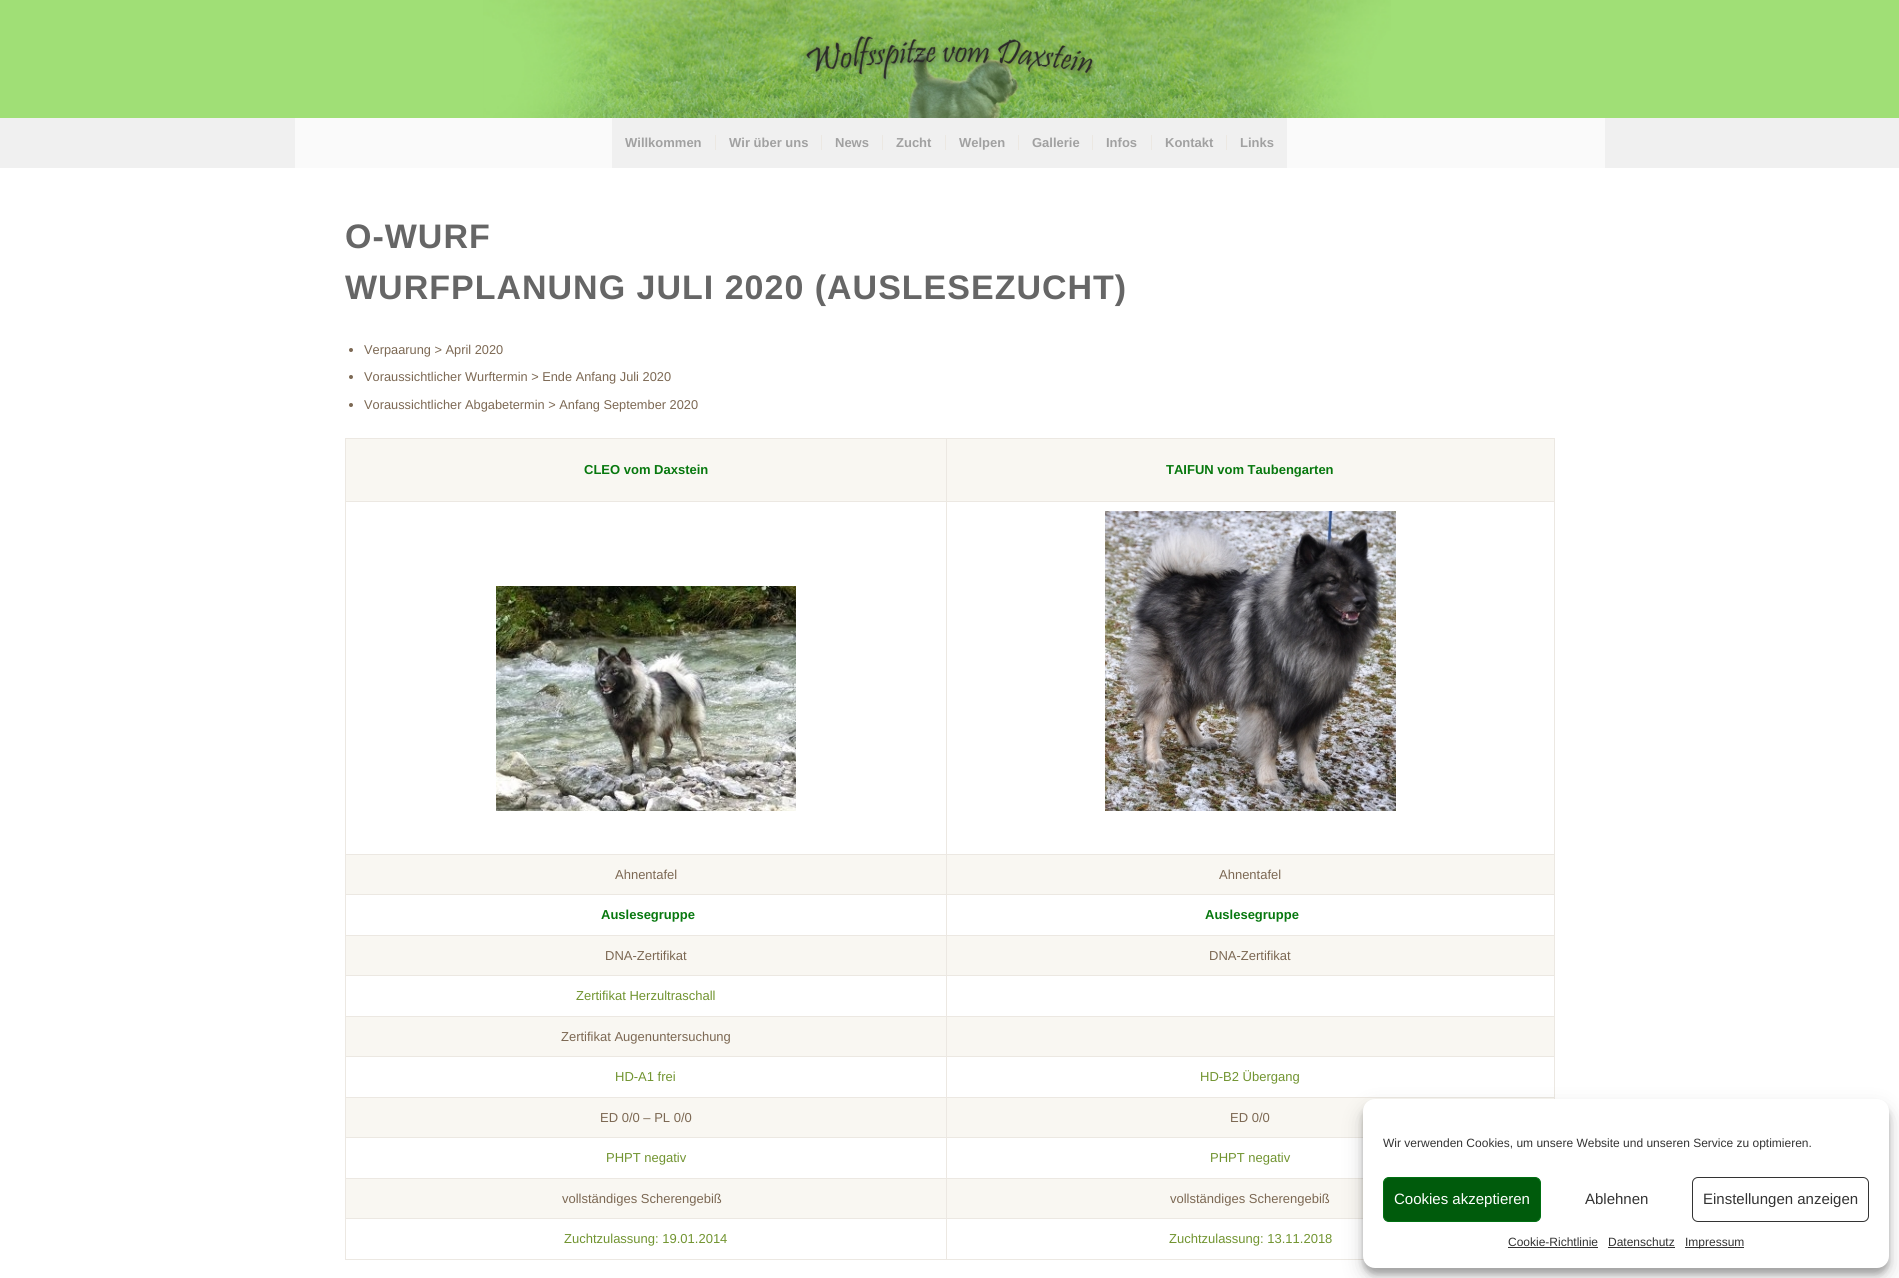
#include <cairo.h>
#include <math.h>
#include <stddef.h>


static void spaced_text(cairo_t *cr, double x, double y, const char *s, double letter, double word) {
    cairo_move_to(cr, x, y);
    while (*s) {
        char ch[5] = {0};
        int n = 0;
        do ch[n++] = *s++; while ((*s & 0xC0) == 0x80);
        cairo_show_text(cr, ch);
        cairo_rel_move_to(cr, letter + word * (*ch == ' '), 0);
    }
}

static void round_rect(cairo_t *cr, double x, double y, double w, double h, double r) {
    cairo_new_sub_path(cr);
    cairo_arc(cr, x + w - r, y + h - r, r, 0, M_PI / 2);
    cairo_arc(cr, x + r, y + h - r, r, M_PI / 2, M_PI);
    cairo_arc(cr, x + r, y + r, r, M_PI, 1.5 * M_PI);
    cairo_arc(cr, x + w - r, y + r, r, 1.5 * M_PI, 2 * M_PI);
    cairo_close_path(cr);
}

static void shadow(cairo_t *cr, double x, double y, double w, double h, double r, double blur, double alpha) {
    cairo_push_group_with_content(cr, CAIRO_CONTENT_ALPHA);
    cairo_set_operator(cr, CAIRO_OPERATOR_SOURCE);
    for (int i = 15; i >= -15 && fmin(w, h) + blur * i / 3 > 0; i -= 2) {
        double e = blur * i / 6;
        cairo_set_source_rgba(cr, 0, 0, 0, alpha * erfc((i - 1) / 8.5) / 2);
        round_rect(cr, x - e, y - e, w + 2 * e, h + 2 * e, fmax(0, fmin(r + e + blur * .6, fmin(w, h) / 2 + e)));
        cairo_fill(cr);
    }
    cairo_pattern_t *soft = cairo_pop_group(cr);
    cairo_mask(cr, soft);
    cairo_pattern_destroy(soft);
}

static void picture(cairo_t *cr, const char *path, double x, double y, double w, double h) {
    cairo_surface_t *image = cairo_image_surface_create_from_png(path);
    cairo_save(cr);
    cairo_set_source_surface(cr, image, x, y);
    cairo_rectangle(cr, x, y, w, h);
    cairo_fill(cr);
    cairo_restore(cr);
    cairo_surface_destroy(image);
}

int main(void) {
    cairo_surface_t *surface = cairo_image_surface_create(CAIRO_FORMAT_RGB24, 1899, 1278);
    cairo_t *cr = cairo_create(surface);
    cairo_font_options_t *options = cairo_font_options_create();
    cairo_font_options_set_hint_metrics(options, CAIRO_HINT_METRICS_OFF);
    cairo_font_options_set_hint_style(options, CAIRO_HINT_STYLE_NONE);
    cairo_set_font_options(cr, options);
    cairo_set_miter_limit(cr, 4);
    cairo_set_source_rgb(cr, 0.627, 0.875, 0.463);
    cairo_paint(cr);
    picture(cr, "img1.png", 483, 0, 908, 118);
    picture(cr, "img2.png", 805, 34, 291, 47);
    cairo_set_source_rgb(cr, 0.941, 0.941, 0.941);
    cairo_rectangle(cr, 0, 118, 1899, 50);
    cairo_fill(cr);
    cairo_set_source_rgb(cr, 0.98, 0.98, 0.98);
    cairo_rectangle(cr, 295, 118, 1310, 50);
    cairo_fill(cr);
    cairo_set_source_rgb(cr, 0.941, 0.941, 0.941);
    cairo_rectangle(cr, 612, 118, 675, 50);
    cairo_fill(cr);
    cairo_select_font_face(cr, "Liberation Sans", CAIRO_FONT_SLANT_NORMAL, CAIRO_FONT_WEIGHT_BOLD);
    cairo_set_font_size(cr, 13);
    cairo_set_source_rgb(cr, 0.631, 0.631, 0.631);
    cairo_move_to(cr, 625, 147);
    cairo_show_text(cr, "Willkommen");
    cairo_move_to(cr, 729, 147);
    cairo_show_text(cr, "Wir über uns");
    cairo_set_source_rgb(cr, 0.922, 0.91, 0.886);
    cairo_rectangle(cr, 715, 135, 1, 15);
    cairo_fill(cr);
    cairo_set_source_rgb(cr, 0.631, 0.631, 0.631);
    cairo_move_to(cr, 835, 147);
    cairo_show_text(cr, "News");
    cairo_set_source_rgb(cr, 0.922, 0.91, 0.886);
    cairo_rectangle(cr, 821, 135, 1, 15);
    cairo_fill(cr);
    cairo_set_source_rgb(cr, 0.631, 0.631, 0.631);
    cairo_move_to(cr, 896, 147);
    cairo_show_text(cr, "Zucht");
    cairo_set_source_rgb(cr, 0.922, 0.91, 0.886);
    cairo_rectangle(cr, 882, 135, 1, 15);
    cairo_fill(cr);
    cairo_set_source_rgb(cr, 0.631, 0.631, 0.631);
    cairo_move_to(cr, 959, 147);
    cairo_show_text(cr, "Welpen");
    cairo_set_source_rgb(cr, 0.922, 0.91, 0.886);
    cairo_rectangle(cr, 945, 135, 1, 15);
    cairo_fill(cr);
    cairo_set_source_rgb(cr, 0.631, 0.631, 0.631);
    cairo_move_to(cr, 1032, 147);
    cairo_show_text(cr, "Gallerie");
    cairo_set_source_rgb(cr, 0.922, 0.91, 0.886);
    cairo_rectangle(cr, 1018, 135, 1, 15);
    cairo_fill(cr);
    cairo_set_source_rgb(cr, 0.631, 0.631, 0.631);
    cairo_move_to(cr, 1106, 147);
    cairo_show_text(cr, "Infos");
    cairo_set_source_rgb(cr, 0.922, 0.91, 0.886);
    cairo_rectangle(cr, 1092, 135, 1, 15);
    cairo_fill(cr);
    cairo_set_source_rgb(cr, 0.631, 0.631, 0.631);
    cairo_move_to(cr, 1165, 147);
    cairo_show_text(cr, "Kontakt");
    cairo_set_source_rgb(cr, 0.922, 0.91, 0.886);
    cairo_rectangle(cr, 1151, 135, 1, 15);
    cairo_fill(cr);
    cairo_set_source_rgb(cr, 0.631, 0.631, 0.631);
    cairo_move_to(cr, 1240, 147);
    cairo_show_text(cr, "Links");
    cairo_set_source_rgb(cr, 0.922, 0.91, 0.886);
    cairo_rectangle(cr, 1226, 135, 1, 15);
    cairo_fill(cr);
    cairo_set_source_rgb(cr, 1, 1, 1);
    cairo_rectangle(cr, 0, 168, 1899, 1110);
    cairo_fill(cr);
    cairo_set_font_size(cr, 34);
    cairo_set_source_rgb(cr, 0.4, 0.4, 0.4);
    spaced_text(cr, 345, 248, "O-WURF", 1, 0);
    spaced_text(cr, 345, 299, "WURFPLANUNG JULI 2020 (AUSLESEZUCHT)", 1, 0);
    cairo_set_source_rgb(cr, 0.486, 0.408, 0.325);
    cairo_new_path(cr);
    cairo_arc(cr, 351, 350, 2, 0, 2 * M_PI);
    cairo_fill(cr);
    cairo_select_font_face(cr, "Liberation Sans", CAIRO_FONT_SLANT_NORMAL, CAIRO_FONT_WEIGHT_NORMAL);
    cairo_set_font_size(cr, 12.8);
    cairo_move_to(cr, 364, 354);
    cairo_show_text(cr, "Verpaarung > April 2020");
    cairo_new_path(cr);
    cairo_arc(cr, 351, 377, 2, 0, 2 * M_PI);
    cairo_fill(cr);
    cairo_move_to(cr, 364, 381);
    cairo_show_text(cr, "Voraussichtlicher Wurftermin > Ende Anfang Juli 2020");
    cairo_new_path(cr);
    cairo_arc(cr, 351, 405, 2, 0, 2 * M_PI);
    cairo_fill(cr);
    cairo_move_to(cr, 364, 409);
    cairo_show_text(cr, "Voraussichtlicher Abgabetermin > Anfang September 2020");
    cairo_set_source_rgb(cr, 0.973, 0.965, 0.949);
    cairo_rectangle(cr, 346, 439, 1208, 779);
    cairo_fill(cr);
    cairo_set_source_rgb(cr, 0.922, 0.91, 0.886);
    cairo_rectangle(cr, 345, 438, 1210, 1);
    cairo_fill(cr);
    cairo_rectangle(cr, 1554, 501, 1, 598);
    cairo_fill(cr);
    cairo_rectangle(cr, 1554, 438, 1, 64);
    cairo_fill(cr);
    cairo_set_source_rgb(cr, 1, 1, 1);
    cairo_rectangle(cr, 346, 502, 1208, 352);
    cairo_fill(cr);
    cairo_rectangle(cr, 346, 895, 1208, 40);
    cairo_fill(cr);
    cairo_rectangle(cr, 346, 976, 1208, 40);
    cairo_fill(cr);
    cairo_rectangle(cr, 346, 1057, 1208, 40);
    cairo_fill(cr);
    cairo_rectangle(cr, 346, 1138, 1017, 40);
    cairo_fill(cr);
    cairo_set_source_rgb(cr, 0.922, 0.91, 0.886);
    cairo_rectangle(cr, 946, 1259, 418, 1);
    cairo_fill(cr);
    cairo_rectangle(cr, 946, 1218, 1, 42);
    cairo_fill(cr);
    cairo_rectangle(cr, 946, 1218, 417, 1);
    cairo_fill(cr);
    cairo_rectangle(cr, 946, 1178, 1, 41);
    cairo_fill(cr);
    cairo_rectangle(cr, 946, 1178, 417, 1);
    cairo_fill(cr);
    cairo_rectangle(cr, 946, 1137, 1, 42);
    cairo_fill(cr);
    cairo_rectangle(cr, 946, 1137, 417, 1);
    cairo_fill(cr);
    cairo_rectangle(cr, 946, 1097, 1, 41);
    cairo_fill(cr);
    cairo_rectangle(cr, 946, 1097, 609, 1);
    cairo_fill(cr);
    cairo_rectangle(cr, 946, 1056, 1, 42);
    cairo_fill(cr);
    cairo_rectangle(cr, 946, 1056, 609, 1);
    cairo_fill(cr);
    cairo_rectangle(cr, 946, 1016, 1, 41);
    cairo_fill(cr);
    cairo_rectangle(cr, 946, 1016, 609, 1);
    cairo_fill(cr);
    cairo_rectangle(cr, 946, 975, 1, 42);
    cairo_fill(cr);
    cairo_rectangle(cr, 946, 975, 609, 1);
    cairo_fill(cr);
    cairo_rectangle(cr, 946, 935, 1, 41);
    cairo_fill(cr);
    cairo_rectangle(cr, 946, 935, 609, 1);
    cairo_fill(cr);
    cairo_rectangle(cr, 946, 894, 1, 42);
    cairo_fill(cr);
    cairo_rectangle(cr, 946, 894, 609, 1);
    cairo_fill(cr);
    cairo_rectangle(cr, 946, 854, 1, 41);
    cairo_fill(cr);
    cairo_rectangle(cr, 946, 854, 609, 1);
    cairo_fill(cr);
    cairo_rectangle(cr, 946, 501, 1, 354);
    cairo_fill(cr);
    cairo_rectangle(cr, 946, 501, 609, 1);
    cairo_fill(cr);
    cairo_rectangle(cr, 946, 438, 1, 64);
    cairo_fill(cr);
    cairo_rectangle(cr, 345, 1259, 602, 1);
    cairo_fill(cr);
    cairo_rectangle(cr, 345, 1218, 1, 42);
    cairo_fill(cr);
    cairo_rectangle(cr, 345, 1218, 602, 1);
    cairo_fill(cr);
    cairo_rectangle(cr, 345, 1178, 1, 41);
    cairo_fill(cr);
    cairo_rectangle(cr, 345, 1178, 602, 1);
    cairo_fill(cr);
    cairo_rectangle(cr, 345, 1137, 1, 42);
    cairo_fill(cr);
    cairo_rectangle(cr, 345, 1137, 602, 1);
    cairo_fill(cr);
    cairo_rectangle(cr, 345, 1097, 1, 41);
    cairo_fill(cr);
    cairo_rectangle(cr, 345, 1097, 602, 1);
    cairo_fill(cr);
    cairo_rectangle(cr, 345, 1056, 1, 42);
    cairo_fill(cr);
    cairo_rectangle(cr, 345, 1056, 602, 1);
    cairo_fill(cr);
    cairo_rectangle(cr, 345, 1016, 1, 41);
    cairo_fill(cr);
    cairo_rectangle(cr, 345, 1016, 602, 1);
    cairo_fill(cr);
    cairo_rectangle(cr, 345, 975, 1, 42);
    cairo_fill(cr);
    cairo_rectangle(cr, 345, 975, 602, 1);
    cairo_fill(cr);
    cairo_rectangle(cr, 345, 935, 1, 41);
    cairo_fill(cr);
    cairo_rectangle(cr, 345, 935, 602, 1);
    cairo_fill(cr);
    cairo_rectangle(cr, 345, 894, 1, 42);
    cairo_fill(cr);
    cairo_rectangle(cr, 345, 894, 602, 1);
    cairo_fill(cr);
    cairo_rectangle(cr, 345, 854, 1, 41);
    cairo_fill(cr);
    cairo_rectangle(cr, 345, 854, 602, 1);
    cairo_fill(cr);
    cairo_rectangle(cr, 345, 501, 1, 354);
    cairo_fill(cr);
    cairo_rectangle(cr, 345, 501, 602, 1);
    cairo_fill(cr);
    cairo_rectangle(cr, 345, 438, 1, 64);
    cairo_fill(cr);
    cairo_select_font_face(cr, "Liberation Sans", CAIRO_FONT_SLANT_NORMAL, CAIRO_FONT_WEIGHT_BOLD);
    cairo_set_font_size(cr, 13);
    cairo_set_source_rgb(cr, 0.031, 0.471, 0.055);
    cairo_move_to(cr, 584, 474);
    cairo_show_text(cr, "CLEO vom Daxstein");
    cairo_move_to(cr, 1166, 474);
    cairo_show_text(cr, "TAIFUN vom Taubengarten");
    picture(cr, "img3.png", 496, 586, 300, 225);
    picture(cr, "img4.png", 1105, 511, 291, 300);
    cairo_select_font_face(cr, "Liberation Sans", CAIRO_FONT_SLANT_NORMAL, CAIRO_FONT_WEIGHT_NORMAL);
    cairo_set_source_rgb(cr, 0.486, 0.408, 0.325);
    cairo_move_to(cr, 615, 879);
    cairo_show_text(cr, "Ahnentafel");
    cairo_move_to(cr, 1219, 879);
    cairo_show_text(cr, "Ahnentafel");
    cairo_select_font_face(cr, "Liberation Sans", CAIRO_FONT_SLANT_NORMAL, CAIRO_FONT_WEIGHT_BOLD);
    cairo_set_source_rgb(cr, 0.031, 0.471, 0.055);
    cairo_move_to(cr, 601, 919);
    cairo_show_text(cr, "Auslesegruppe");
    cairo_move_to(cr, 1205, 919);
    cairo_show_text(cr, "Auslesegruppe");
    cairo_select_font_face(cr, "Liberation Sans", CAIRO_FONT_SLANT_NORMAL, CAIRO_FONT_WEIGHT_NORMAL);
    cairo_set_source_rgb(cr, 0.486, 0.408, 0.325);
    cairo_move_to(cr, 605, 960);
    cairo_show_text(cr, "DNA-Zertifikat");
    cairo_move_to(cr, 1209, 960);
    cairo_show_text(cr, "DNA-Zertifikat");
    cairo_set_source_rgb(cr, 0.443, 0.58, 0.188);
    cairo_move_to(cr, 576, 1000);
    cairo_show_text(cr, "Zertifikat Herzultraschall");
    cairo_set_source_rgb(cr, 0.486, 0.408, 0.325);
    cairo_move_to(cr, 561, 1041);
    cairo_show_text(cr, "Zertifikat Augenuntersuchung");
    cairo_set_source_rgb(cr, 0.443, 0.58, 0.188);
    cairo_move_to(cr, 615, 1081);
    cairo_show_text(cr, "HD-A1 frei");
    cairo_move_to(cr, 1200, 1081);
    cairo_show_text(cr, "HD-B2 Übergang");
    cairo_set_source_rgb(cr, 0.486, 0.408, 0.325);
    cairo_move_to(cr, 600, 1122);
    cairo_show_text(cr, "ED 0/0 – PL 0/0");
    cairo_move_to(cr, 1230, 1122);
    cairo_show_text(cr, "ED 0/0");
    cairo_set_source_rgb(cr, 0.443, 0.58, 0.188);
    cairo_move_to(cr, 606, 1162);
    cairo_show_text(cr, "PHPT negativ");
    cairo_move_to(cr, 1210, 1162);
    cairo_show_text(cr, "PHPT negativ");
    cairo_set_source_rgb(cr, 0.486, 0.408, 0.325);
    cairo_move_to(cr, 562, 1203);
    cairo_show_text(cr, "vollständiges Scherengebiß");
    cairo_move_to(cr, 1170, 1203);
    cairo_show_text(cr, "vollständiges Scherengebiß");
    cairo_set_source_rgb(cr, 0.443, 0.58, 0.188);
    cairo_move_to(cr, 564, 1243);
    cairo_show_text(cr, "Zuchtzulassung: 19.01.2014");
    cairo_move_to(cr, 1169, 1243);
    cairo_show_text(cr, "Zuchtzulassung: 13.11.2018");
    cairo_set_source_rgb(cr, 0, 0, 0);
    shadow(cr, 1363, 1105, 526, 169, 12, 3, 0.23);
    shadow(cr, 1363, 1109, 526, 169, 12, 10, 0.19);
    cairo_set_source_rgb(cr, 1, 1, 1);
    round_rect(cr, 1363, 1099, 526, 169, 12);
    cairo_fill(cr);
    cairo_set_font_size(cr, 12);
    cairo_set_source_rgb(cr, 0.2, 0.2, 0.2);
    cairo_move_to(cr, 1383, 1147);
    cairo_show_text(cr, "Wir verwenden Cookies, um unsere Website und unseren Service zu optimieren.");
    cairo_set_source_rgb(cr, 0, 0.357, 0.047);
    round_rect(cr, 1383.5, 1177.5, 157, 44, 5.5);
    cairo_fill_preserve(cr);
    cairo_set_source_rgb(cr, 0, 0.439, 0.071);
    cairo_set_line_width(cr, 1);
    cairo_stroke(cr);
    cairo_set_font_size(cr, 15);
    cairo_set_source_rgb(cr, 1, 1, 1);
    cairo_move_to(cr, 1394, 1204);
    cairo_show_text(cr, "Cookies akzeptieren");
    cairo_set_source_rgb(cr, 0.2, 0.2, 0.2);
    cairo_move_to(cr, 1585, 1204);
    cairo_show_text(cr, "Ablehnen");
    round_rect(cr, 1692.5, 1177.5, 176, 44, 5.5);
    cairo_stroke(cr);
    cairo_move_to(cr, 1703, 1204);
    cairo_show_text(cr, "Einstellungen anzeigen");
    cairo_set_font_size(cr, 12);
    cairo_move_to(cr, 1508, 1246);
    cairo_show_text(cr, "Cookie-Richtlinie");
    cairo_rectangle(cr, 1508, 1247, 90, 1);
    cairo_fill(cr);
    cairo_move_to(cr, 1608, 1246);
    cairo_show_text(cr, "Datenschutz");
    cairo_rectangle(cr, 1608, 1247, 67, 1);
    cairo_fill(cr);
    cairo_rectangle(cr, 1685, 1247, 59, 1);
    cairo_fill(cr);
    cairo_move_to(cr, 1685, 1246);
    cairo_show_text(cr, "Impressum");
    cairo_surface_write_to_png(surface, "page.png");
    cairo_font_options_destroy(options);
    cairo_destroy(cr);
    cairo_surface_destroy(surface);
    return 0;
}
